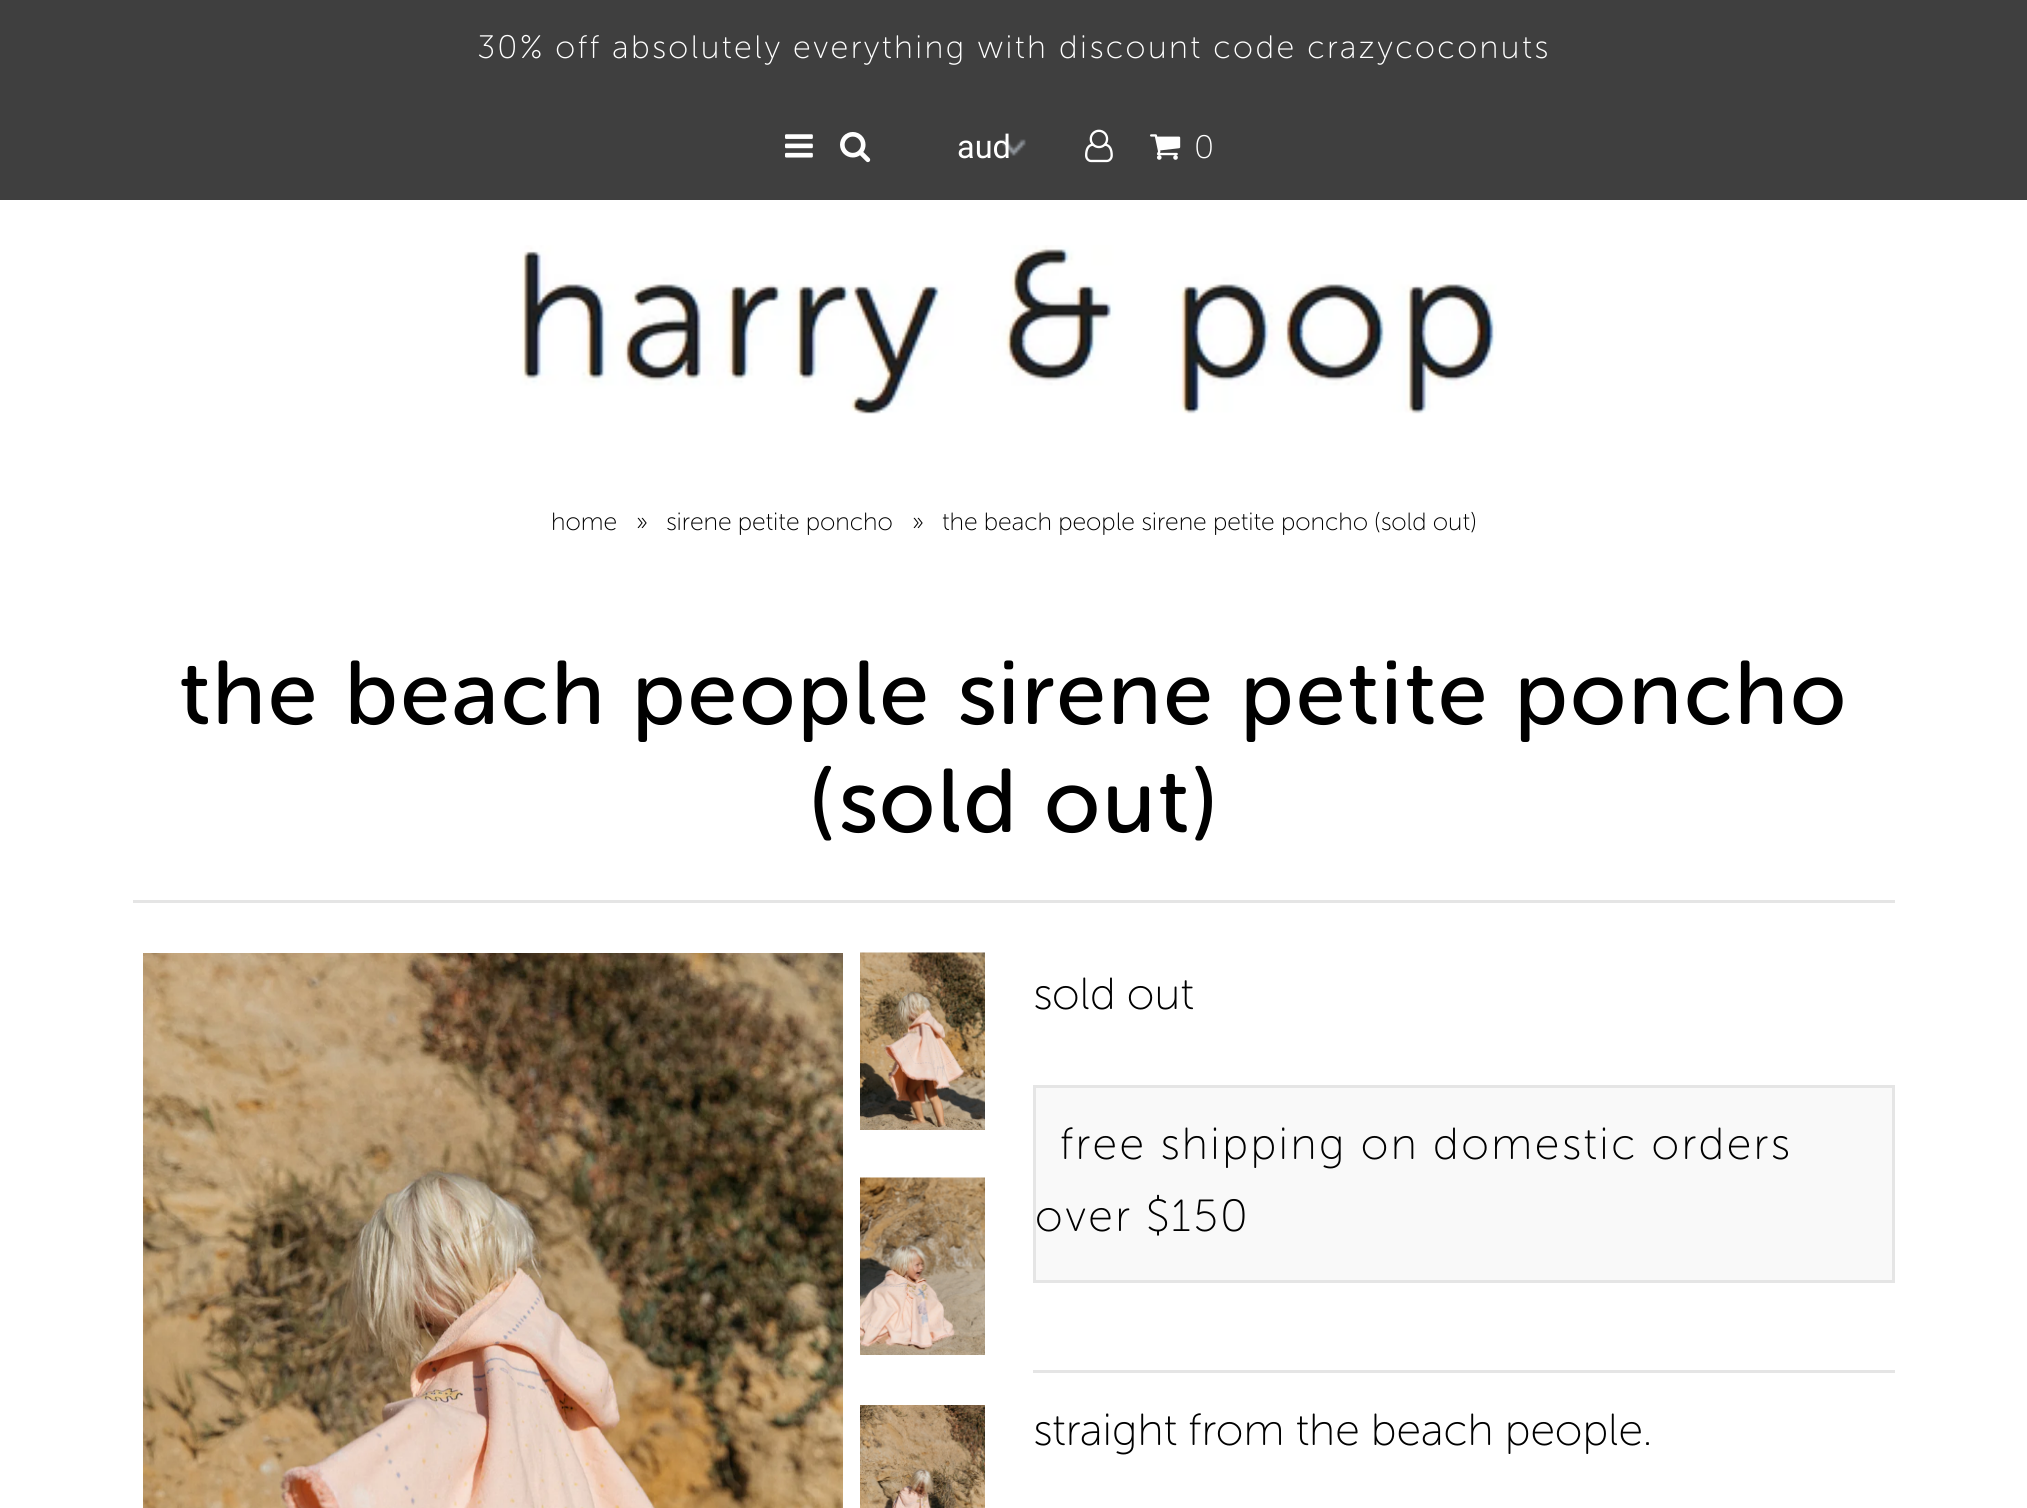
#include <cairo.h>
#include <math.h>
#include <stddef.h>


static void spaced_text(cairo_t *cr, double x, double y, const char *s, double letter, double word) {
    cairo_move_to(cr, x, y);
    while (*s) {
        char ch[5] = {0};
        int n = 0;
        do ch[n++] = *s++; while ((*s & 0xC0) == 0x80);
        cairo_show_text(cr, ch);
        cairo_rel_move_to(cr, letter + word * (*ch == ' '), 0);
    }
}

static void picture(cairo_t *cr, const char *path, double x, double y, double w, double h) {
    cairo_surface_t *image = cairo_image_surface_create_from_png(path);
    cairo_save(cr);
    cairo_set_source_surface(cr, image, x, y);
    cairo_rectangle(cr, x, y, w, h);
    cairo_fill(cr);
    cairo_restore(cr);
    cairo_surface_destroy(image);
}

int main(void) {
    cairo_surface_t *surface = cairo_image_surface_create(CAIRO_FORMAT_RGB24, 2027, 1508);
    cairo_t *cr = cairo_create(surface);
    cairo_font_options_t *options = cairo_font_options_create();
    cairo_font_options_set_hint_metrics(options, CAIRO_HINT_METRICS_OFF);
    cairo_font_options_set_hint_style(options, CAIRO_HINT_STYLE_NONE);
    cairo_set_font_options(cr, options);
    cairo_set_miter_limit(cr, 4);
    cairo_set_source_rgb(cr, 1, 1, 1);
    cairo_paint(cr);
    cairo_set_source_rgb(cr, 0.247, 0.247, 0.247);
    cairo_rectangle(cr, 0, 0, 2027, 200);
    cairo_fill(cr);
    cairo_select_font_face(cr, "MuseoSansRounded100", CAIRO_FONT_SLANT_NORMAL, CAIRO_FONT_WEIGHT_NORMAL);
    cairo_set_font_size(cr, 32.5);
    cairo_set_source_rgb(cr, 1, 1, 1);
    spaced_text(cr, 477, 58, "30% off absolutely everything with discount code crazycoconuts", 2.5, 0);
    picture(cr, "img1.png", 785, 134, 28, 24);
    picture(cr, "img2.png", 840, 132, 31, 31);
    picture(cr, "img3.png", 1002, 139, 24, 17);
    cairo_select_font_face(cr, "Roboto", CAIRO_FONT_SLANT_NORMAL, CAIRO_FONT_WEIGHT_NORMAL);
    cairo_move_to(cr, 957, 158);
    cairo_show_text(cr, "aud");
    picture(cr, "img4.png", 1085, 129, 28, 34);
    picture(cr, "img5.png", 1150, 134, 31, 26);
    cairo_select_font_face(cr, "MuseoSansRounded100", CAIRO_FONT_SLANT_NORMAL, CAIRO_FONT_WEIGHT_NORMAL);
    spaced_text(cr, 1194, 158, "0", 2.5, 0);
    picture(cr, "img6.png", 520, 245, 977, 169);
    cairo_set_font_size(cr, 25);
    cairo_set_source_rgb(cr, 0, 0, 0);
    cairo_move_to(cr, 551, 530);
    cairo_show_text(cr, "home");
    cairo_move_to(cr, 636, 530);
    cairo_show_text(cr, "»");
    cairo_move_to(cr, 666, 530);
    cairo_show_text(cr, "sirene petite poncho");
    cairo_move_to(cr, 912, 530);
    cairo_show_text(cr, "»");
    cairo_move_to(cr, 942, 530);
    cairo_show_text(cr, "the beach people sirene petite poncho (sold out)");
    cairo_set_source_rgb(cr, 0.898, 0.898, 0.898);
    cairo_rectangle(cr, 133, 900, 1762, 3);
    cairo_fill(cr);
    cairo_select_font_face(cr, "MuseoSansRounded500", CAIRO_FONT_SLANT_NORMAL, CAIRO_FONT_WEIGHT_NORMAL);
    cairo_set_font_size(cr, 90);
    cairo_set_source_rgb(cr, 0, 0, 0);
    spaced_text(cr, 179, 724, "the beach people sirene petite poncho", 2.5, 0);
    spaced_text(cr, 810, 832, "(sold out)", 2.5, 0);
    picture(cr, "img7.png", 143, 953, 700, 555);
    picture(cr, "img8.png", 860, 952, 125, 178);
    picture(cr, "img9.png", 860, 1177, 125, 178);
    picture(cr, "img10.png", 860, 1405, 125, 103);
    cairo_select_font_face(cr, "MuseoSansRounded100", CAIRO_FONT_SLANT_NORMAL, CAIRO_FONT_WEIGHT_NORMAL);
    cairo_set_font_size(cr, 45);
    cairo_move_to(cr, 1033, 1009);
    cairo_show_text(cr, "sold out");
    cairo_set_source_rgb(cr, 0.973, 0.973, 0.973);
    cairo_rectangle(cr, 1034.5, 1086.5, 859, 195);
    cairo_fill_preserve(cr);
    cairo_set_source_rgb(cr, 0.898, 0.898, 0.898);
    cairo_set_line_width(cr, 3);
    cairo_stroke(cr);
    cairo_set_source_rgb(cr, 0, 0, 0);
    spaced_text(cr, 1060, 1159, "free shipping on domestic orders", 2.5, 0);
    spaced_text(cr, 1035, 1231, "over $150", 2.5, 0);
    cairo_set_source_rgb(cr, 0.898, 0.898, 0.898);
    cairo_rectangle(cr, 1033, 1370, 862, 3);
    cairo_fill(cr);
    cairo_set_source_rgb(cr, 0, 0, 0);
    cairo_move_to(cr, 1033, 1445);
    cairo_show_text(cr, "straight from the beach people.");
    cairo_surface_write_to_png(surface, "page.png");
    cairo_font_options_destroy(options);
    cairo_destroy(cr);
    cairo_surface_destroy(surface);
    return 0;
}
